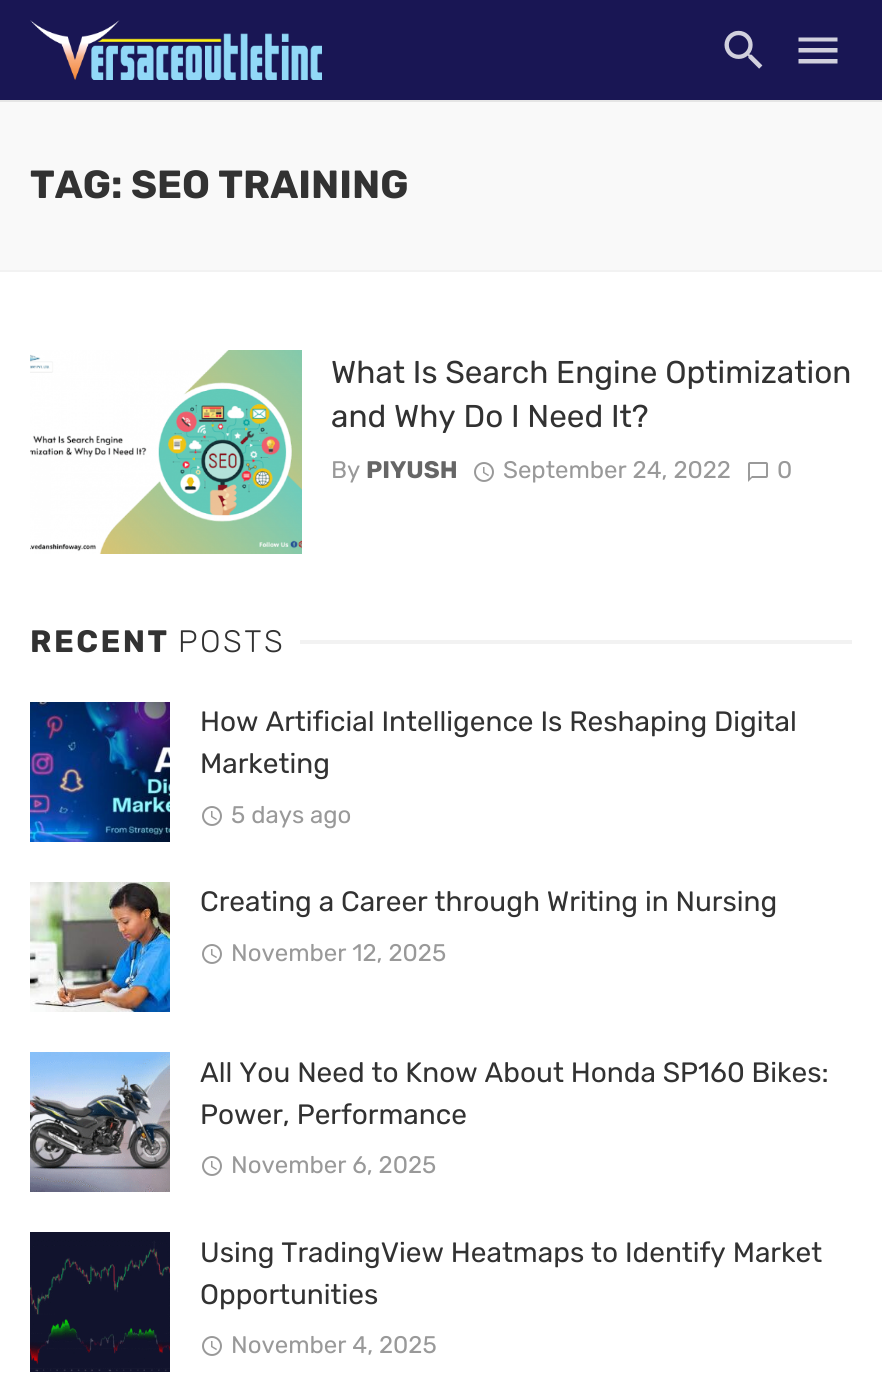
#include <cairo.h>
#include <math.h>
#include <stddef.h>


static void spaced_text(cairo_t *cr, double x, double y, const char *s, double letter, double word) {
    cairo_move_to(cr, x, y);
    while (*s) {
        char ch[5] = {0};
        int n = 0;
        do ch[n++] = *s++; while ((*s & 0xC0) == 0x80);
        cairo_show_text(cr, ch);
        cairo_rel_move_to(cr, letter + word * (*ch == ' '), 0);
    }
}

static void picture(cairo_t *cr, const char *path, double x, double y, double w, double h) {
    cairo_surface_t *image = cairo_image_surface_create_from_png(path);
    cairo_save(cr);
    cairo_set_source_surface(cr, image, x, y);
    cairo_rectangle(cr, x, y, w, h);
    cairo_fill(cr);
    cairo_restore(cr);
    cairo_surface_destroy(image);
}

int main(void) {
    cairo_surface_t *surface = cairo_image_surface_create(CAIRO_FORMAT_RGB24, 882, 1400);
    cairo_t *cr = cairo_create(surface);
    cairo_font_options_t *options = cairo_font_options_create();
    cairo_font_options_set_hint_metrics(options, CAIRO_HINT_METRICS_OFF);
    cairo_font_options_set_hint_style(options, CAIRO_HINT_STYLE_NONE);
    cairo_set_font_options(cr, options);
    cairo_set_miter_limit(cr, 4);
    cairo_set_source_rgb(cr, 1, 1, 1);
    cairo_paint(cr);
    cairo_rectangle(cr, -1, 99, 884, 172);
    cairo_set_source_rgb(cr, 0.949, 0.949, 0.949);
    cairo_stroke(cr);
    cairo_set_source_rgb(cr, 0.933, 0.933, 0.933);
    cairo_rectangle(cr, 0, 100, 882, 2);
    cairo_fill(cr);
    cairo_set_source_rgba(cr, 0, 0, 0, 0.04);
    cairo_rectangle(cr, 0, 100, 882, 2);
    cairo_fill(cr);
    cairo_set_source_rgb(cr, 0.098, 0.086, 0.329);
    cairo_rectangle(cr, 0, 0, 882, 100);
    cairo_fill(cr);
    picture(cr, "img1.png", 30, 20, 292, 60);
    picture(cr, "img2.png", 724, 30, 39, 39);
    cairo_set_source_rgb(cr, 0.82, 0.816, 0.867);
    cairo_new_path(cr);
    cairo_move_to(cr, 798.5, 37.5);
    cairo_line_to(cr, 837.5, 37.5);
    cairo_line_to(cr, 837.5, 41.5);
    cairo_line_to(cr, 798.5, 41.5);
    cairo_close_path(cr);
    cairo_move_to(cr, 798.5, 52.5);
    cairo_line_to(cr, 798.5, 48);
    cairo_line_to(cr, 837.5, 48);
    cairo_line_to(cr, 837.5, 52.5);
    cairo_close_path(cr);
    cairo_move_to(cr, 798.5, 63.5);
    cairo_line_to(cr, 798.5, 59);
    cairo_line_to(cr, 837.5, 59);
    cairo_line_to(cr, 837.5, 63.5);
    cairo_close_path(cr);
    cairo_fill(cr);
    cairo_set_source_rgb(cr, 0.973, 0.973, 0.973);
    cairo_rectangle(cr, 0, 102, 882, 168);
    cairo_fill(cr);
    cairo_select_font_face(cr, "Rubik", CAIRO_FONT_SLANT_NORMAL, CAIRO_FONT_WEIGHT_BOLD);
    cairo_set_font_size(cr, 39.25);
    cairo_set_source_rgb(cr, 0.196, 0.196, 0.196);
    cairo_move_to(cr, 30, 198);
    cairo_show_text(cr, "TAG: SEO TRAINING");
    picture(cr, "img3.png", 30, 350, 272, 204);
    cairo_select_font_face(cr, "Rubik", CAIRO_FONT_SLANT_NORMAL, CAIRO_FONT_WEIGHT_NORMAL);
    cairo_set_font_size(cr, 31.5);
    cairo_move_to(cr, 331, 383);
    cairo_show_text(cr, "What Is Search Engine Optimization");
    cairo_move_to(cr, 331, 427);
    cairo_show_text(cr, "and Why Do I Need It?");
    cairo_set_font_size(cr, 24);
    cairo_set_source_rgb(cr, 0.6, 0.6, 0.6);
    cairo_move_to(cr, 331, 478);
    cairo_show_text(cr, "By");
    cairo_select_font_face(cr, "Rubik", CAIRO_FONT_SLANT_NORMAL, CAIRO_FONT_WEIGHT_BOLD);
    cairo_set_source_rgb(cr, 0.4, 0.4, 0.4);
    cairo_move_to(cr, 366, 478);
    cairo_show_text(cr, "PIYUSH");
    picture(cr, "img4.png", 474, 462, 20, 20);
    cairo_select_font_face(cr, "Rubik", CAIRO_FONT_SLANT_NORMAL, CAIRO_FONT_WEIGHT_NORMAL);
    cairo_set_source_rgb(cr, 0.6, 0.6, 0.6);
    cairo_move_to(cr, 503, 478);
    cairo_show_text(cr, "September 24, 2022");
    picture(cr, "img5.png", 748, 462, 20, 20);
    cairo_move_to(cr, 777, 478);
    cairo_show_text(cr, "0");
    cairo_select_font_face(cr, "Rubik", CAIRO_FONT_SLANT_NORMAL, CAIRO_FONT_WEIGHT_BOLD);
    cairo_set_font_size(cr, 31);
    cairo_set_source_rgb(cr, 0.196, 0.196, 0.196);
    spaced_text(cr, 30, 652, "RECENT", 2.5, 0);
    cairo_select_font_face(cr, "Rubik Light", CAIRO_FONT_SLANT_NORMAL, CAIRO_FONT_WEIGHT_NORMAL);
    spaced_text(cr, 178, 652, "POSTS", 2.5, 0);
    cairo_set_source_rgb(cr, 0.949, 0.949, 0.949);
    cairo_rectangle(cr, 300, 640, 552, 4);
    cairo_fill(cr);
    picture(cr, "img6.png", 30, 702, 140, 140);
    cairo_select_font_face(cr, "Rubik", CAIRO_FONT_SLANT_NORMAL, CAIRO_FONT_WEIGHT_NORMAL);
    cairo_set_font_size(cr, 28);
    cairo_set_source_rgb(cr, 0.196, 0.196, 0.196);
    cairo_move_to(cr, 200, 731);
    cairo_show_text(cr, "How Artificial Intelligence Is Reshaping Digital");
    cairo_move_to(cr, 200, 773);
    cairo_show_text(cr, "Marketing");
    picture(cr, "img4.png", 202, 806, 20, 20);
    cairo_set_font_size(cr, 24);
    cairo_set_source_rgb(cr, 0.6, 0.6, 0.6);
    cairo_move_to(cr, 231, 823);
    cairo_show_text(cr, "5 days ago");
    picture(cr, "img7.png", 30, 882, 140, 130);
    cairo_set_font_size(cr, 28);
    cairo_set_source_rgb(cr, 0.196, 0.196, 0.196);
    cairo_move_to(cr, 200, 911);
    cairo_show_text(cr, "Creating a Career through Writing in Nursing");
    picture(cr, "img4.png", 202, 944, 20, 20);
    cairo_set_font_size(cr, 24);
    cairo_set_source_rgb(cr, 0.6, 0.6, 0.6);
    cairo_move_to(cr, 231, 961);
    cairo_show_text(cr, "November 12, 2025");
    picture(cr, "img8.png", 30, 1052, 140, 140);
    cairo_set_font_size(cr, 28);
    cairo_set_source_rgb(cr, 0.196, 0.196, 0.196);
    cairo_move_to(cr, 200, 1082);
    cairo_show_text(cr, "All You Need to Know About Honda SP160 Bikes:");
    cairo_move_to(cr, 200, 1124);
    cairo_show_text(cr, "Power, Performance");
    picture(cr, "img4.png", 202, 1156, 20, 20);
    cairo_set_font_size(cr, 24);
    cairo_set_source_rgb(cr, 0.6, 0.6, 0.6);
    cairo_move_to(cr, 231, 1173);
    cairo_show_text(cr, "November 6, 2025");
    picture(cr, "img9.png", 30, 1232, 140, 140);
    cairo_set_font_size(cr, 28);
    cairo_set_source_rgb(cr, 0.196, 0.196, 0.196);
    cairo_move_to(cr, 200, 1262);
    cairo_show_text(cr, "Using TradingView Heatmaps to Identify Market");
    cairo_move_to(cr, 200, 1304);
    cairo_show_text(cr, "Opportunities");
    picture(cr, "img4.png", 202, 1336, 20, 20);
    cairo_set_font_size(cr, 24);
    cairo_set_source_rgb(cr, 0.6, 0.6, 0.6);
    cairo_move_to(cr, 231, 1353);
    cairo_show_text(cr, "November 4, 2025");
    cairo_surface_write_to_png(surface, "page.png");
    cairo_font_options_destroy(options);
    cairo_destroy(cr);
    cairo_surface_destroy(surface);
    return 0;
}
